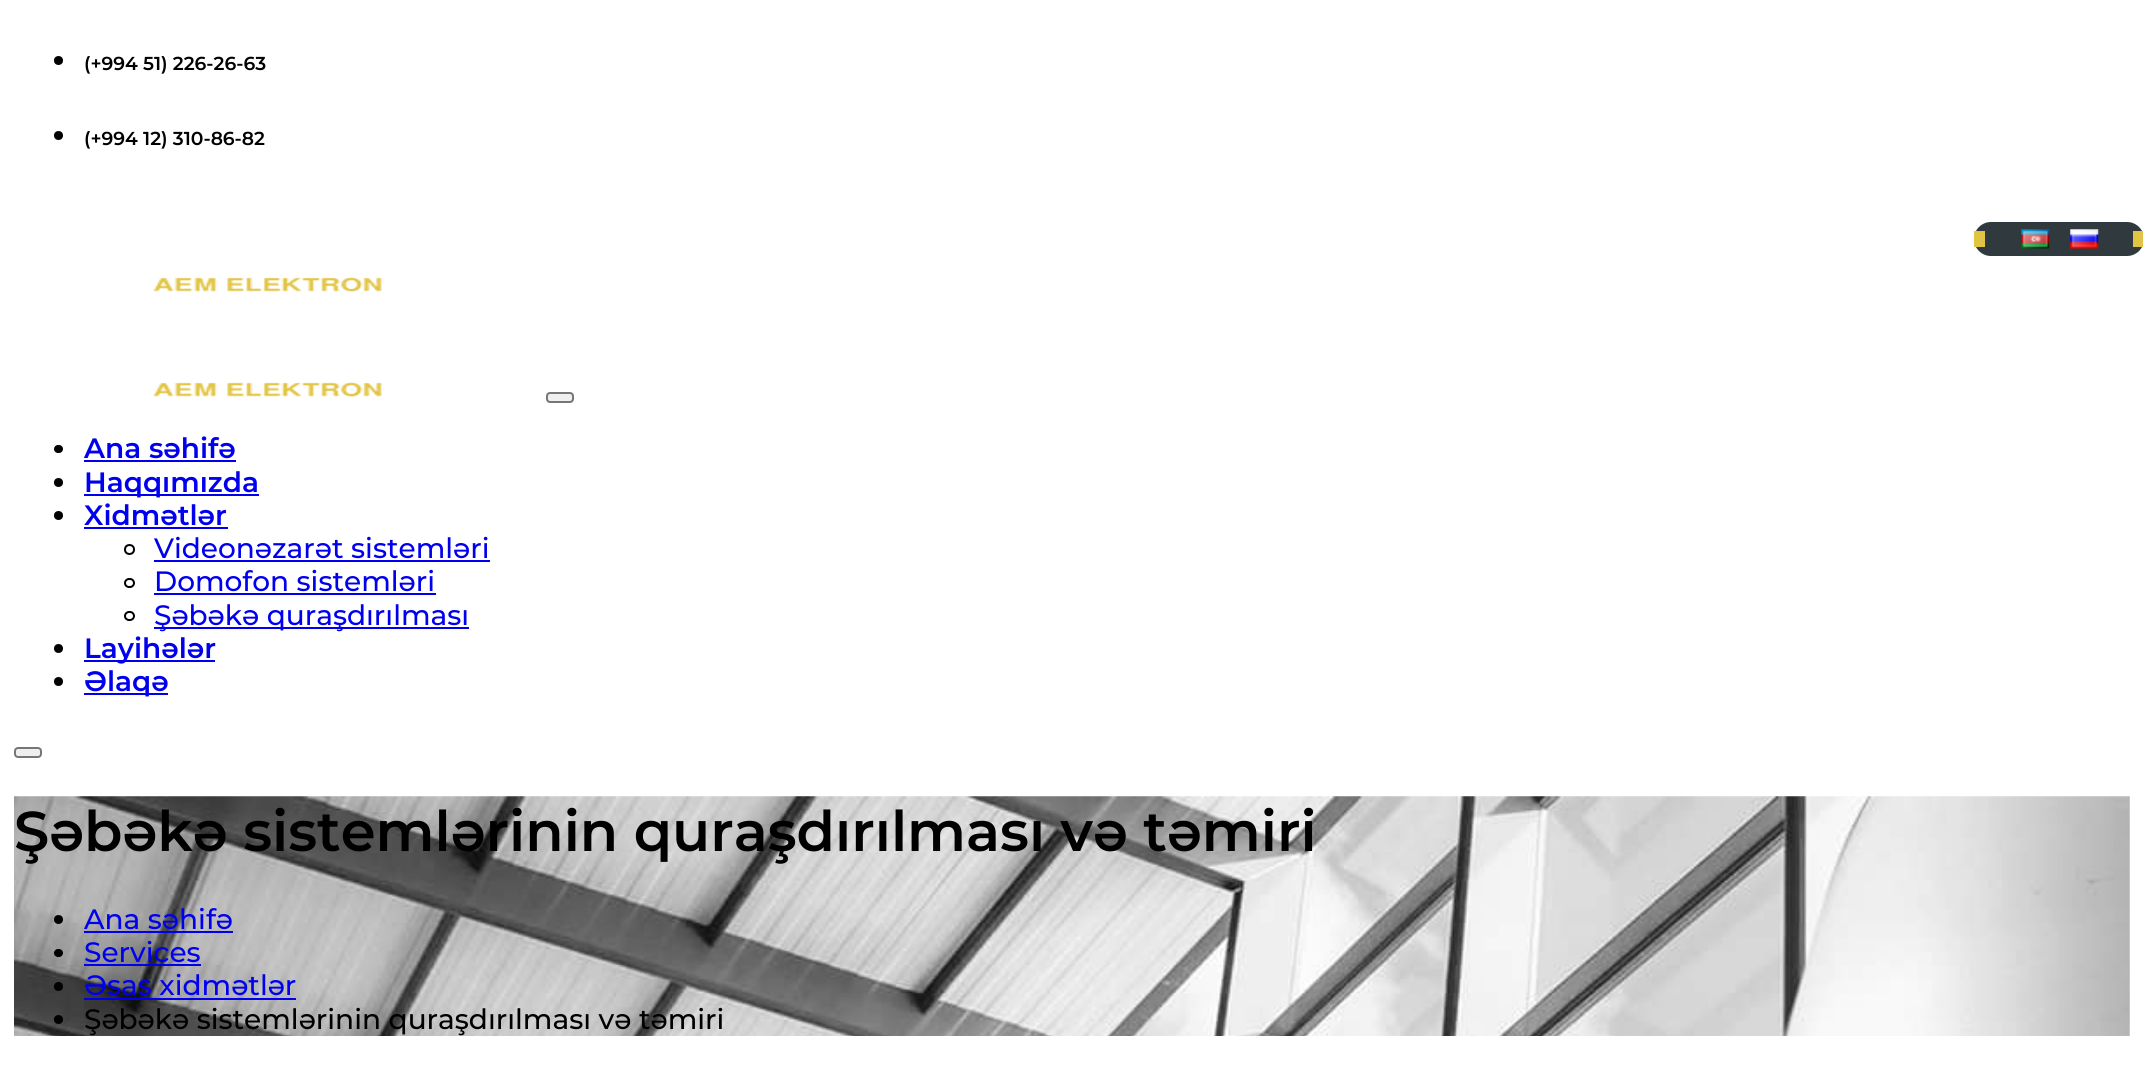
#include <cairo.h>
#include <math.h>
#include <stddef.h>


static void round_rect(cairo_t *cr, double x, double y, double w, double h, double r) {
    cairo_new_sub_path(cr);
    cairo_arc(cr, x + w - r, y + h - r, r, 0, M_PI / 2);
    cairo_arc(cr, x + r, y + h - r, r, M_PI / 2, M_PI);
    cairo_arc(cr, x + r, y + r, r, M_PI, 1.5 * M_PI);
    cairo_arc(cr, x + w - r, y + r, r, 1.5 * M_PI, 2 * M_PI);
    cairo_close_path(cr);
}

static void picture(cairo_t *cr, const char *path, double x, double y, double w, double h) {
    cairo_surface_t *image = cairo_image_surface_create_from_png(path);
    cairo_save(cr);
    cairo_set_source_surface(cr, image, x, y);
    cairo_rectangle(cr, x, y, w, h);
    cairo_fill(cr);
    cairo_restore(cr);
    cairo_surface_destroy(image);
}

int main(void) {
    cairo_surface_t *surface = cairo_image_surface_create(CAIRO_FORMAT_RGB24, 2143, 1067);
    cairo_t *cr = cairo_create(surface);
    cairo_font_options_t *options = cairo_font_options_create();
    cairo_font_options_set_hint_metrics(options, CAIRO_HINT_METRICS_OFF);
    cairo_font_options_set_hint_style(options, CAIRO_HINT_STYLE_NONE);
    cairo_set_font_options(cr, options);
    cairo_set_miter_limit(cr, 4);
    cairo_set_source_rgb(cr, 1, 1, 1);
    cairo_paint(cr);
    cairo_set_source_rgb(cr, 0, 0, 0);
    cairo_arc(cr, 58.5, 60.5, 4.5, 0, 2 * M_PI);
    cairo_fill(cr);
    cairo_select_font_face(cr, "Montserrat SemiBold", CAIRO_FONT_SLANT_NORMAL, CAIRO_FONT_WEIGHT_NORMAL);
    cairo_set_font_size(cr, 18.75);
    cairo_move_to(cr, 84, 70);
    cairo_show_text(cr, "(+994 51) 226-26-63");
    cairo_new_path(cr);
    cairo_arc(cr, 58.5, 135.5, 4.5, 0, 2 * M_PI);
    cairo_fill(cr);
    cairo_move_to(cr, 84, 145);
    cairo_show_text(cr, "(+994 12) 310-86-82");
    cairo_set_source_rgb(cr, 0.188, 0.227, 0.243);
    round_rect(cr, 1974, 222, 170, 34, 17);
    cairo_fill(cr);
    cairo_set_source_rgb(cr, 0.886, 0.769, 0.271);
    cairo_rectangle(cr, 2133, 231, 10, 16);
    cairo_fill(cr);
    cairo_rectangle(cr, 1974, 231, 11, 16);
    cairo_fill(cr);
    picture(cr, "img1.png", 2021, 229, 29, 20);
    picture(cr, "img2.png", 2070, 229, 29, 20);
    picture(cr, "img3.png", 153, 277, 229, 15);
    picture(cr, "img3.png", 153, 382, 229, 15);
    cairo_set_source_rgb(cr, 0.937, 0.937, 0.937);
    round_rect(cr, 547, 393, 26, 9, 3);
    cairo_fill_preserve(cr);
    cairo_set_source_rgb(cr, 0.463, 0.463, 0.463);
    cairo_stroke(cr);
    cairo_set_source_rgb(cr, 0, 0, 0);
    round_rect(cr, 54, 445, 9, 8, 4);
    cairo_fill(cr);
    cairo_set_font_size(cr, 28);
    cairo_set_source_rgb(cr, 0, 0, 0.933);
    cairo_move_to(cr, 84, 458);
    cairo_show_text(cr, "Ana səhifə");
    cairo_rectangle(cr, 84, 460, 152, 2);
    cairo_fill(cr);
    cairo_set_source_rgb(cr, 0, 0, 0);
    cairo_arc(cr, 58.5, 482.5, 4.5, 0, 2 * M_PI);
    cairo_fill(cr);
    cairo_set_source_rgb(cr, 0, 0, 0.933);
    cairo_rectangle(cr, 84, 494, 175, 2);
    cairo_fill(cr);
    cairo_move_to(cr, 84, 492);
    cairo_show_text(cr, "Haqqımızda");
    cairo_set_source_rgb(cr, 0, 0, 0);
    cairo_new_path(cr);
    cairo_arc(cr, 58.5, 515.5, 4.5, 0, 2 * M_PI);
    cairo_fill(cr);
    cairo_set_source_rgb(cr, 0, 0, 0.933);
    cairo_move_to(cr, 84, 525);
    cairo_show_text(cr, "Xidmətlər");
    cairo_rectangle(cr, 84, 527, 144, 2);
    cairo_fill(cr);
    cairo_arc(cr, 129.5, 549.5, 4.5, 0, 2 * M_PI);
    cairo_set_source_rgb(cr, 0, 0, 0);
    cairo_stroke(cr);
    cairo_select_font_face(cr, "Montserrat Medium", CAIRO_FONT_SLANT_NORMAL, CAIRO_FONT_WEIGHT_NORMAL);
    cairo_set_source_rgb(cr, 0, 0, 0.933);
    cairo_move_to(cr, 154, 558);
    cairo_show_text(cr, "Videonəzarət sistemləri");
    cairo_rectangle(cr, 154, 560, 336, 2);
    cairo_fill(cr);
    round_rect(cr, 125, 579, 9, 8, 4);
    cairo_set_source_rgb(cr, 0, 0, 0);
    cairo_stroke(cr);
    cairo_set_source_rgb(cr, 0, 0, 0.933);
    cairo_move_to(cr, 154, 591);
    cairo_show_text(cr, "Domofon sistemləri");
    cairo_rectangle(cr, 154, 593, 282, 2);
    cairo_fill(cr);
    round_rect(cr, 125, 612, 9, 8, 4);
    cairo_set_source_rgb(cr, 0, 0, 0);
    cairo_stroke(cr);
    cairo_set_source_rgb(cr, 0, 0, 0.933);
    cairo_rectangle(cr, 154, 627, 315, 2);
    cairo_fill(cr);
    cairo_move_to(cr, 154, 625);
    cairo_show_text(cr, "Şəbəkə quraşdırılması");
    cairo_set_source_rgb(cr, 0, 0, 0);
    cairo_new_path(cr);
    cairo_arc(cr, 58.5, 648.5, 4.5, 0, 2 * M_PI);
    cairo_fill(cr);
    cairo_set_source_rgb(cr, 0, 0, 0.933);
    cairo_rectangle(cr, 84, 660, 131, 2);
    cairo_fill(cr);
    cairo_select_font_face(cr, "Montserrat SemiBold", CAIRO_FONT_SLANT_NORMAL, CAIRO_FONT_WEIGHT_NORMAL);
    cairo_move_to(cr, 84, 658);
    cairo_show_text(cr, "Layihələr");
    cairo_set_source_rgb(cr, 0, 0, 0);
    cairo_new_path(cr);
    cairo_arc(cr, 58.5, 681.5, 4.5, 0, 2 * M_PI);
    cairo_fill(cr);
    cairo_set_source_rgb(cr, 0, 0, 0.933);
    cairo_rectangle(cr, 84, 693, 84, 2);
    cairo_fill(cr);
    cairo_move_to(cr, 84, 691);
    cairo_show_text(cr, "Əlaqə");
    cairo_set_source_rgb(cr, 0.937, 0.937, 0.937);
    round_rect(cr, 15, 748, 26, 9, 3);
    cairo_fill_preserve(cr);
    cairo_set_source_rgb(cr, 0.463, 0.463, 0.463);
    cairo_stroke(cr);
    picture(cr, "img4.png", 14, 796, 2116, 240);
    cairo_set_font_size(cr, 56);
    cairo_set_source_rgb(cr, 0, 0, 0);
    cairo_move_to(cr, 14, 851);
    cairo_show_text(cr, "Şəbəkə sistemlərinin quraşdırılması və təmiri");
    cairo_new_path(cr);
    cairo_arc(cr, 58.5, 919.5, 4.5, 0, 2 * M_PI);
    cairo_fill(cr);
    cairo_select_font_face(cr, "Montserrat Medium", CAIRO_FONT_SLANT_NORMAL, CAIRO_FONT_WEIGHT_NORMAL);
    cairo_set_font_size(cr, 28);
    cairo_set_source_rgb(cr, 0, 0, 0.933);
    cairo_move_to(cr, 84, 929);
    cairo_show_text(cr, "Ana səhifə");
    cairo_rectangle(cr, 84, 931, 149, 2);
    cairo_fill(cr);
    cairo_set_source_rgb(cr, 0, 0, 0);
    round_rect(cr, 54, 949, 9, 8, 4);
    cairo_fill(cr);
    cairo_set_source_rgb(cr, 0, 0, 0.933);
    cairo_move_to(cr, 84, 962);
    cairo_show_text(cr, "Services");
    cairo_rectangle(cr, 84, 964, 117, 2);
    cairo_fill(cr);
    cairo_set_source_rgb(cr, 0, 0, 0);
    cairo_arc(cr, 58.5, 986.5, 4.5, 0, 2 * M_PI);
    cairo_fill(cr);
    cairo_set_source_rgb(cr, 0, 0, 0.933);
    cairo_move_to(cr, 84, 995);
    cairo_show_text(cr, "Əsas xidmətlər");
    cairo_rectangle(cr, 84, 998, 212, 2);
    cairo_fill(cr);
    cairo_set_source_rgb(cr, 0, 0, 0);
    cairo_arc(cr, 58.5, 1019.5, 4.5, 0, 2 * M_PI);
    cairo_fill(cr);
    cairo_move_to(cr, 84, 1029);
    cairo_show_text(cr, "Şəbəkə sistemlərinin quraşdırılması və təmiri");
    cairo_surface_write_to_png(surface, "page.png");
    cairo_font_options_destroy(options);
    cairo_destroy(cr);
    cairo_surface_destroy(surface);
    return 0;
}
